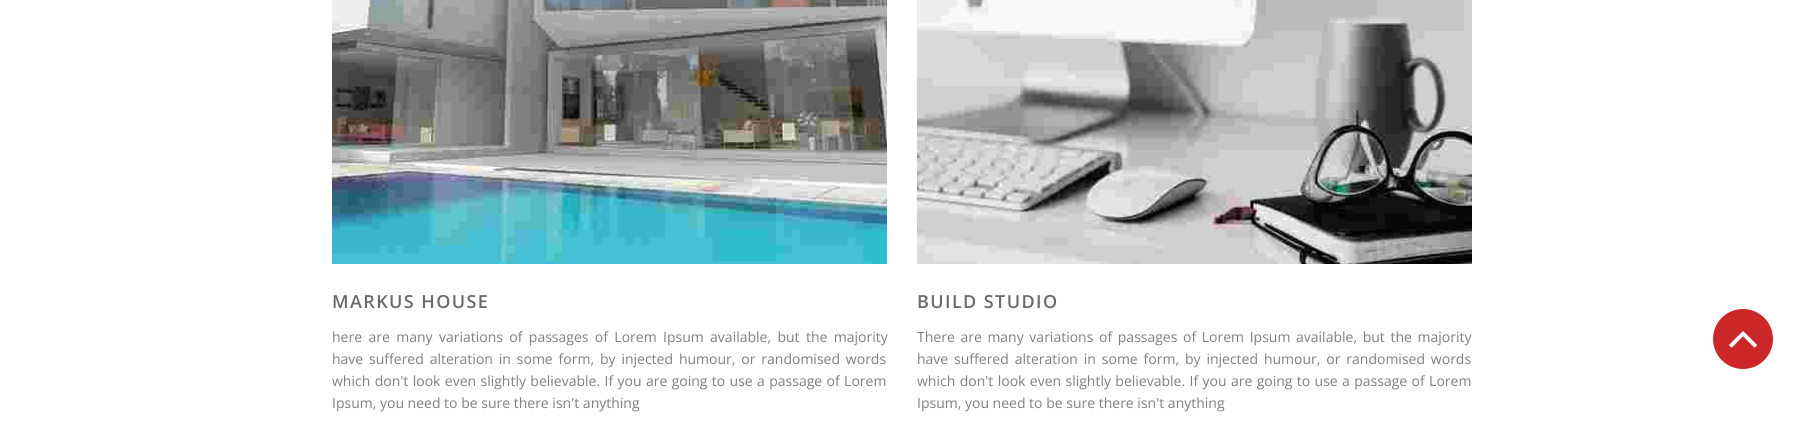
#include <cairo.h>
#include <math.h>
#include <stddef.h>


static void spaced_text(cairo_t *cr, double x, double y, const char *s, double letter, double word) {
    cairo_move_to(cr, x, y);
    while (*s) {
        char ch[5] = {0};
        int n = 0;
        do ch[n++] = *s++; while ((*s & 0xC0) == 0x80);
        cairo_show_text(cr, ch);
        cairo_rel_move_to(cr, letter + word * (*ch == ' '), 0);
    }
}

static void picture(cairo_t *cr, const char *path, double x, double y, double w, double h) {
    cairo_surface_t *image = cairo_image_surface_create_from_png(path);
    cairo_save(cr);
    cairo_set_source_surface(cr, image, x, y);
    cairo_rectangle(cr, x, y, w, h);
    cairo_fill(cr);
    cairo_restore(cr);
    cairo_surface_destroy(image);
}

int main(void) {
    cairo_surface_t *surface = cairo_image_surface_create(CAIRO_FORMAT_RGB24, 1803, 439);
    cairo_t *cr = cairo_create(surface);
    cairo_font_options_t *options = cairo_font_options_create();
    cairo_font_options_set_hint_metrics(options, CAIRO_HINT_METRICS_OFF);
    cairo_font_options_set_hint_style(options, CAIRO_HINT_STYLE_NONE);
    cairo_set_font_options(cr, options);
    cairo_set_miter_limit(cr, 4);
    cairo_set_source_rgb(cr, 1, 1, 1);
    cairo_paint(cr);
    picture(cr, "img1.png", 332, 0, 555, 264);
    cairo_select_font_face(cr, "Open Sans SemiBold", CAIRO_FONT_SLANT_NORMAL, CAIRO_FONT_WEIGHT_NORMAL);
    cairo_set_font_size(cr, 18);
    cairo_set_source_rgb(cr, 0.416, 0.416, 0.416);
    spaced_text(cr, 332, 308, "MARKUS HOUSE", 1.4, 0);
    cairo_select_font_face(cr, "Open Sans", CAIRO_FONT_SLANT_NORMAL, CAIRO_FONT_WEIGHT_NORMAL);
    cairo_set_font_size(cr, 14);
    cairo_set_source_rgb(cr, 0.498, 0.498, 0.498);
    spaced_text(cr, 332, 342, "here are many variations of passages of Lorem Ipsum available, but the majority", 0, 2.75);
    spaced_text(cr, 332, 364, "have suffered alteration in some form, by injected humour, or randomised words", 0, 2.25);
    spaced_text(cr, 332, 386, "which don't look even slightly believable. If you are going to use a passage of Lorem", 0, 0.75);
    cairo_move_to(cr, 332, 408);
    cairo_show_text(cr, "Ipsum, you need to be sure there isn't anything");
    picture(cr, "img2.png", 917, 0, 555, 264);
    cairo_select_font_face(cr, "Open Sans SemiBold", CAIRO_FONT_SLANT_NORMAL, CAIRO_FONT_WEIGHT_NORMAL);
    cairo_set_font_size(cr, 18);
    cairo_set_source_rgb(cr, 0.416, 0.416, 0.416);
    spaced_text(cr, 917, 308, "BUILD STUDIO", 1.4, 0);
    cairo_select_font_face(cr, "Open Sans", CAIRO_FONT_SLANT_NORMAL, CAIRO_FONT_WEIGHT_NORMAL);
    cairo_set_font_size(cr, 14);
    cairo_set_source_rgb(cr, 0.498, 0.498, 0.498);
    spaced_text(cr, 917, 342, "There are many variations of passages of Lorem Ipsum available, but the majority", 0, 2);
    spaced_text(cr, 917, 364, "have suffered alteration in some form, by injected humour, or randomised words", 0, 2.25);
    spaced_text(cr, 917, 386, "which don't look even slightly believable. If you are going to use a passage of Lorem", 0, 0.75);
    cairo_move_to(cr, 917, 408);
    cairo_show_text(cr, "Ipsum, you need to be sure there isn't anything");
    cairo_set_source_rgb(cr, 0.796, 0.149, 0.157);
    cairo_new_path(cr);
    cairo_arc(cr, 1743, 339, 28, 0, 2 * M_PI);
    cairo_fill_preserve(cr);
    cairo_set_line_width(cr, 4);
    cairo_stroke(cr);
    picture(cr, "img3.png", 1729, 331, 28, 17);
    cairo_surface_write_to_png(surface, "page.png");
    cairo_font_options_destroy(options);
    cairo_destroy(cr);
    cairo_surface_destroy(surface);
    return 0;
}
